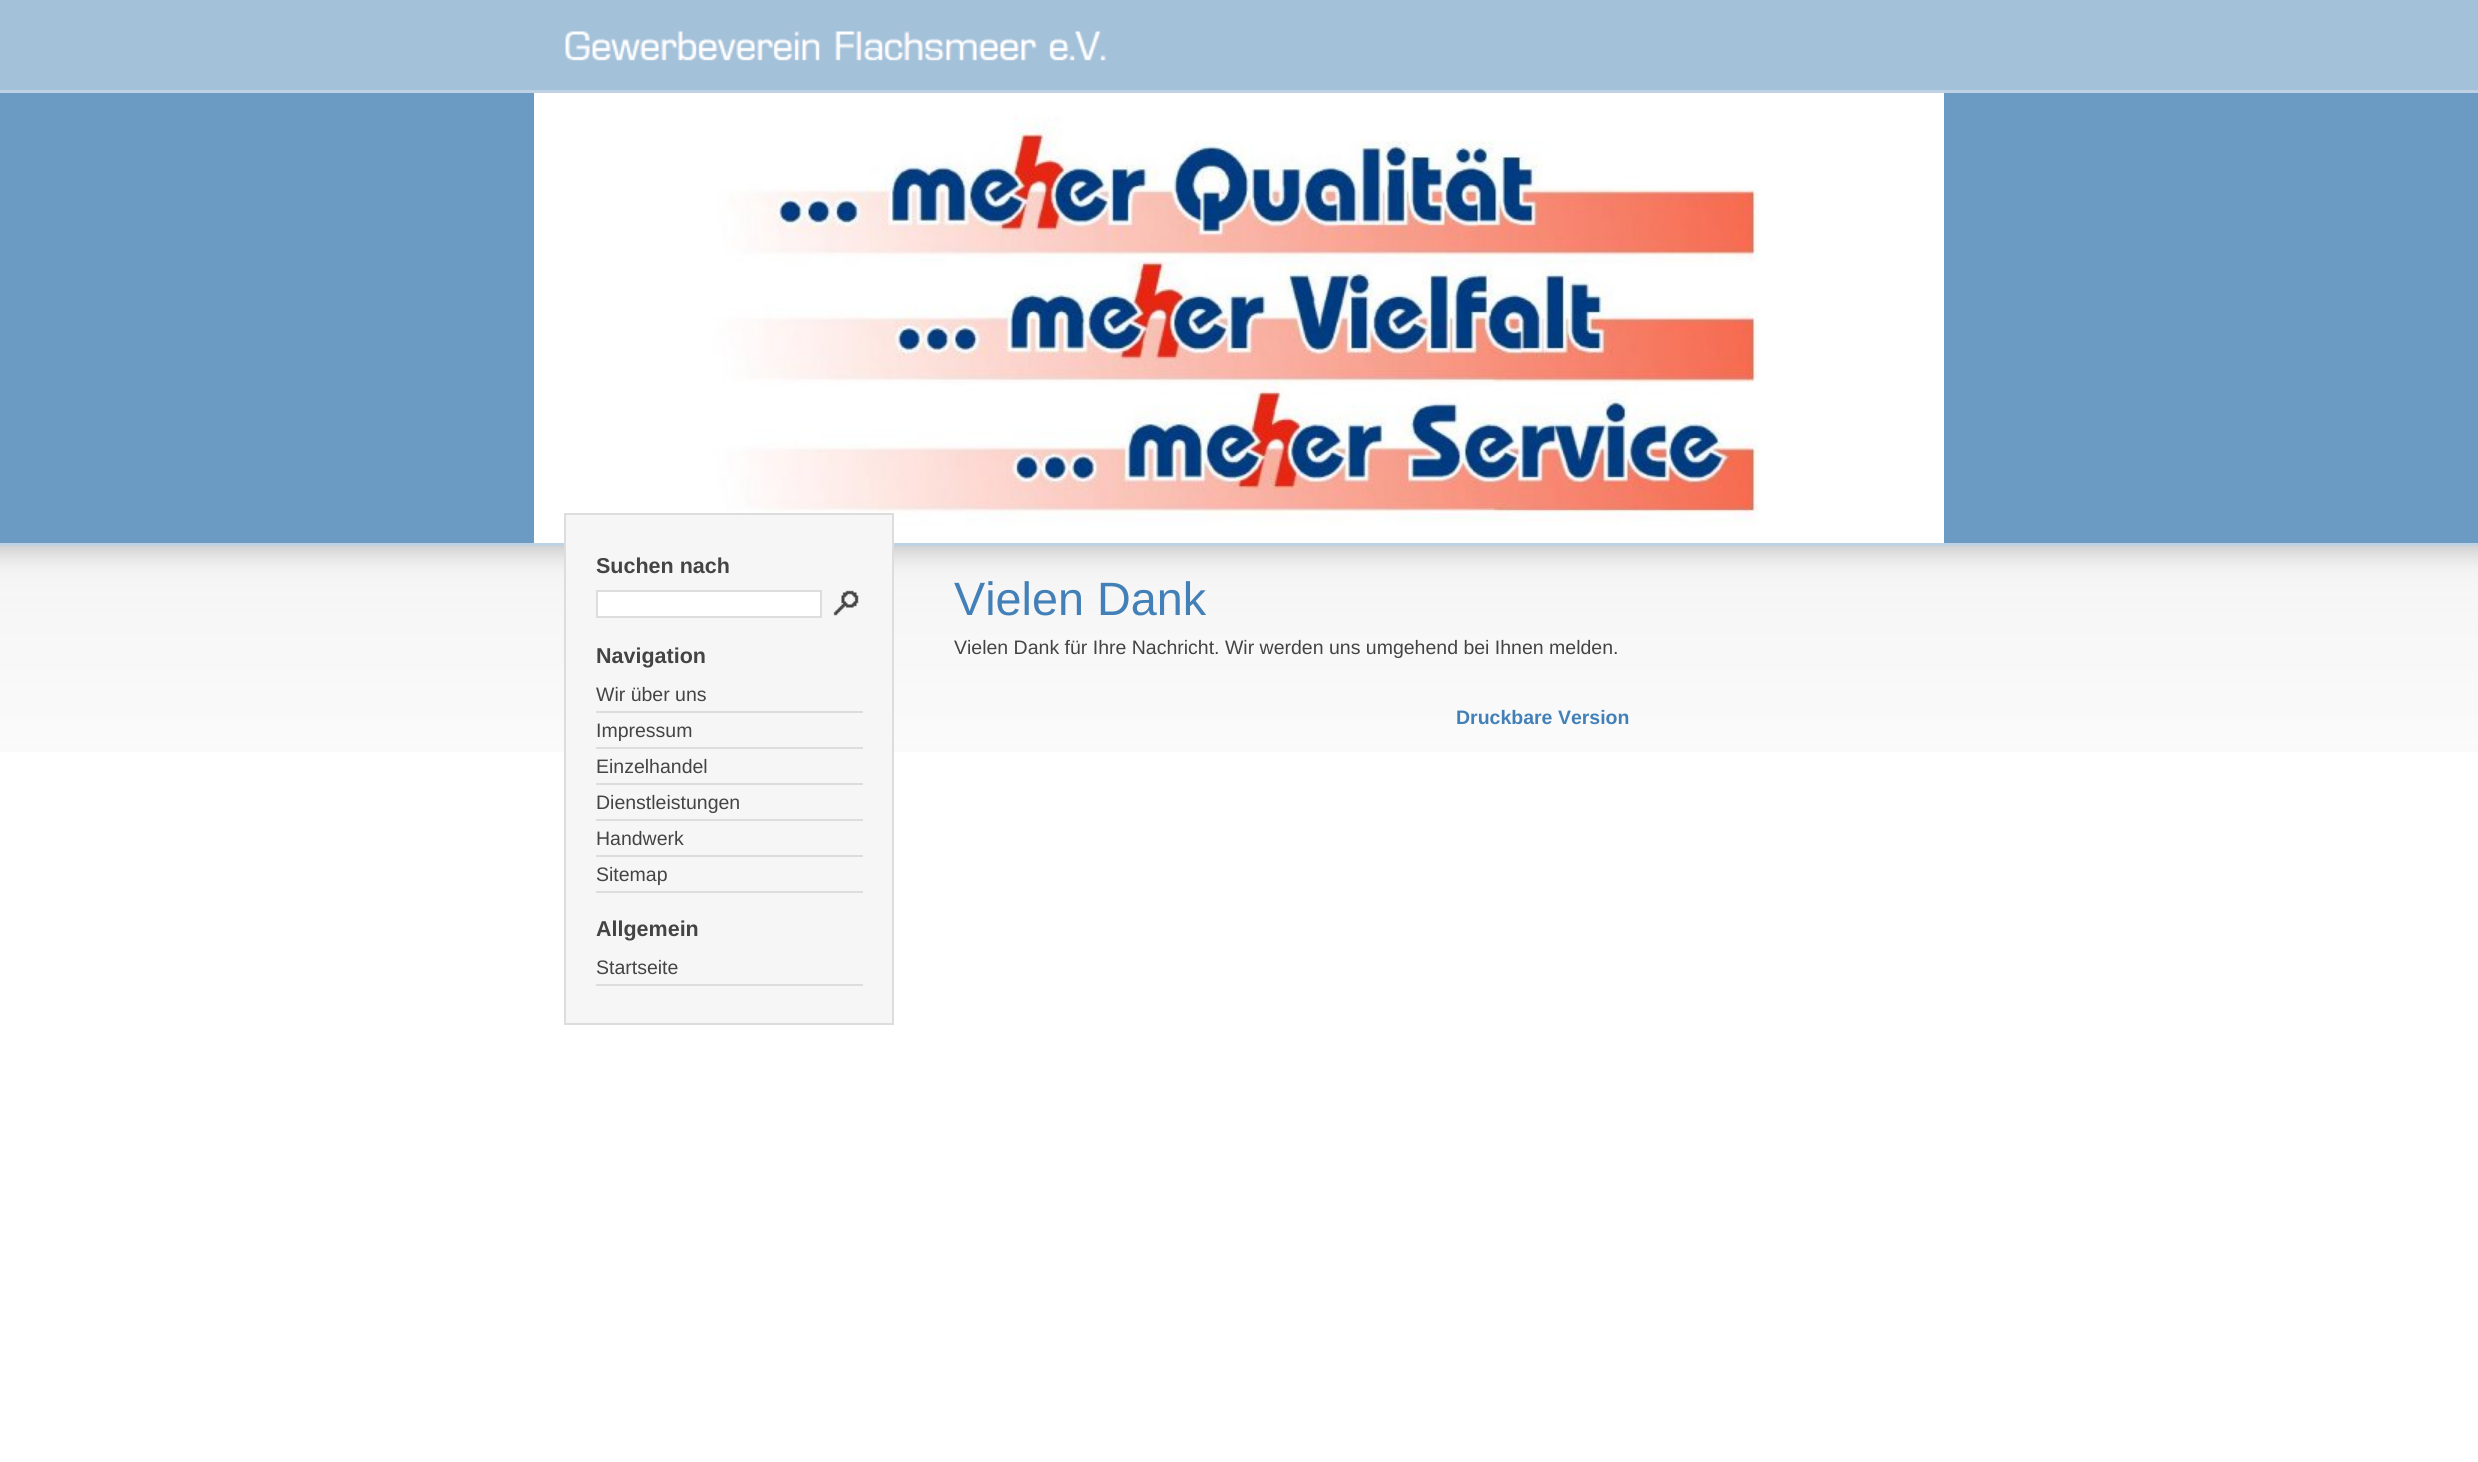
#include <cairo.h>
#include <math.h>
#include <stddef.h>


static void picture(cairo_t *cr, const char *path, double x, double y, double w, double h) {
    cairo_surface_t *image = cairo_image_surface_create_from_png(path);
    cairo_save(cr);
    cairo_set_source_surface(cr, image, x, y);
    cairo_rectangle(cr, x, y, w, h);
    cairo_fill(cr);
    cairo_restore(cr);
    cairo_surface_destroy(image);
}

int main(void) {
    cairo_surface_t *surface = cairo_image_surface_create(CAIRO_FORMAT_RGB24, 2478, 1462);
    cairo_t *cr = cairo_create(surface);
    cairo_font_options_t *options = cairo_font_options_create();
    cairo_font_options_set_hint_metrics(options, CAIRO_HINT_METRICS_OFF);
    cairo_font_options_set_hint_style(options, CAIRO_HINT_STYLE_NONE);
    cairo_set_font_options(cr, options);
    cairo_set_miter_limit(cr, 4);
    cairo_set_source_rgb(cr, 1, 1, 1);
    cairo_paint(cr);
    picture(cr, "img1.png", 0, 546, 2478, 206);
    cairo_set_source_rgb(cr, 0.643, 0.757, 0.855);
    cairo_rectangle(cr, 0, 0, 2478, 90);
    cairo_fill(cr);
    picture(cr, "img2.png", 564, 31, 542, 30);
    cairo_set_source_rgb(cr, 0.42, 0.604, 0.765);
    cairo_rectangle(cr, 0, 93, 2478, 450);
    cairo_fill(cr);
    picture(cr, "img3.png", 534, 93, 1410, 450);
    cairo_set_source_rgb(cr, 0.745, 0.824, 0.894);
    cairo_rectangle(cr, 0, 90, 2478, 3);
    cairo_fill(cr);
    cairo_rectangle(cr, 0, 543, 2478, 3);
    cairo_fill(cr);
    cairo_set_source_rgb(cr, 0.961, 0.961, 0.961);
    cairo_rectangle(cr, 565, 514, 328, 510);
    cairo_fill_preserve(cr);
    cairo_set_source_rgb(cr, 0.867, 0.867, 0.867);
    cairo_stroke(cr);
    cairo_select_font_face(cr, "Liberation Sans", CAIRO_FONT_SLANT_NORMAL, CAIRO_FONT_WEIGHT_BOLD);
    cairo_set_font_size(cr, 21.5);
    cairo_set_source_rgb(cr, 0.267, 0.267, 0.267);
    cairo_move_to(cr, 596, 573);
    cairo_show_text(cr, "Suchen nach");
    cairo_set_source_rgb(cr, 1, 1, 1);
    cairo_rectangle(cr, 597, 591, 224, 26);
    cairo_fill_preserve(cr);
    cairo_set_source_rgb(cr, 0.867, 0.867, 0.867);
    cairo_stroke(cr);
    picture(cr, "img4.png", 833, 590, 26, 26);
    cairo_set_source_rgb(cr, 0.267, 0.267, 0.267);
    cairo_move_to(cr, 596, 663);
    cairo_show_text(cr, "Navigation");
    cairo_set_source_rgb(cr, 0.867, 0.867, 0.867);
    cairo_rectangle(cr, 596, 711, 267, 2);
    cairo_fill(cr);
    cairo_select_font_face(cr, "Liberation Sans", CAIRO_FONT_SLANT_NORMAL, CAIRO_FONT_WEIGHT_NORMAL);
    cairo_set_font_size(cr, 19.5);
    cairo_set_source_rgb(cr, 0.267, 0.267, 0.267);
    cairo_move_to(cr, 596, 701);
    cairo_show_text(cr, "Wir über uns");
    cairo_set_source_rgb(cr, 0.867, 0.867, 0.867);
    cairo_rectangle(cr, 596, 747, 267, 2);
    cairo_fill(cr);
    cairo_set_source_rgb(cr, 0.267, 0.267, 0.267);
    cairo_move_to(cr, 596, 737);
    cairo_show_text(cr, "Impressum");
    cairo_set_source_rgb(cr, 0.867, 0.867, 0.867);
    cairo_rectangle(cr, 596, 783, 267, 2);
    cairo_fill(cr);
    cairo_set_source_rgb(cr, 0.267, 0.267, 0.267);
    cairo_move_to(cr, 596, 773);
    cairo_show_text(cr, "Einzelhandel");
    cairo_set_source_rgb(cr, 0.867, 0.867, 0.867);
    cairo_rectangle(cr, 596, 819, 267, 2);
    cairo_fill(cr);
    cairo_set_source_rgb(cr, 0.267, 0.267, 0.267);
    cairo_move_to(cr, 596, 809);
    cairo_show_text(cr, "Dienstleistungen");
    cairo_set_source_rgb(cr, 0.867, 0.867, 0.867);
    cairo_rectangle(cr, 596, 855, 267, 2);
    cairo_fill(cr);
    cairo_set_source_rgb(cr, 0.267, 0.267, 0.267);
    cairo_move_to(cr, 596, 845);
    cairo_show_text(cr, "Handwerk");
    cairo_set_source_rgb(cr, 0.867, 0.867, 0.867);
    cairo_rectangle(cr, 596, 891, 267, 2);
    cairo_fill(cr);
    cairo_set_source_rgb(cr, 0.267, 0.267, 0.267);
    cairo_move_to(cr, 596, 881);
    cairo_show_text(cr, "Sitemap");
    cairo_select_font_face(cr, "Liberation Sans", CAIRO_FONT_SLANT_NORMAL, CAIRO_FONT_WEIGHT_BOLD);
    cairo_set_font_size(cr, 21.5);
    cairo_move_to(cr, 596, 936);
    cairo_show_text(cr, "Allgemein");
    cairo_set_source_rgb(cr, 0.867, 0.867, 0.867);
    cairo_rectangle(cr, 596, 984, 267, 2);
    cairo_fill(cr);
    cairo_select_font_face(cr, "Liberation Sans", CAIRO_FONT_SLANT_NORMAL, CAIRO_FONT_WEIGHT_NORMAL);
    cairo_set_font_size(cr, 19.5);
    cairo_set_source_rgb(cr, 0.267, 0.267, 0.267);
    cairo_move_to(cr, 596, 974);
    cairo_show_text(cr, "Startseite");
    cairo_set_font_size(cr, 46.75);
    cairo_set_source_rgb(cr, 0.263, 0.502, 0.722);
    cairo_move_to(cr, 954, 615);
    cairo_show_text(cr, "Vielen Dank");
    cairo_set_font_size(cr, 19.5);
    cairo_set_source_rgb(cr, 0.267, 0.267, 0.267);
    cairo_move_to(cr, 954, 654);
    cairo_show_text(cr, "Vielen Dank für Ihre Nachricht. Wir werden uns umgehend bei Ihnen melden.");
    cairo_select_font_face(cr, "Liberation Sans", CAIRO_FONT_SLANT_NORMAL, CAIRO_FONT_WEIGHT_BOLD);
    cairo_set_source_rgb(cr, 0.263, 0.502, 0.722);
    cairo_move_to(cr, 1456, 724);
    cairo_show_text(cr, "Druckbare Version");
    cairo_surface_write_to_png(surface, "page.png");
    cairo_font_options_destroy(options);
    cairo_destroy(cr);
    cairo_surface_destroy(surface);
    return 0;
}
